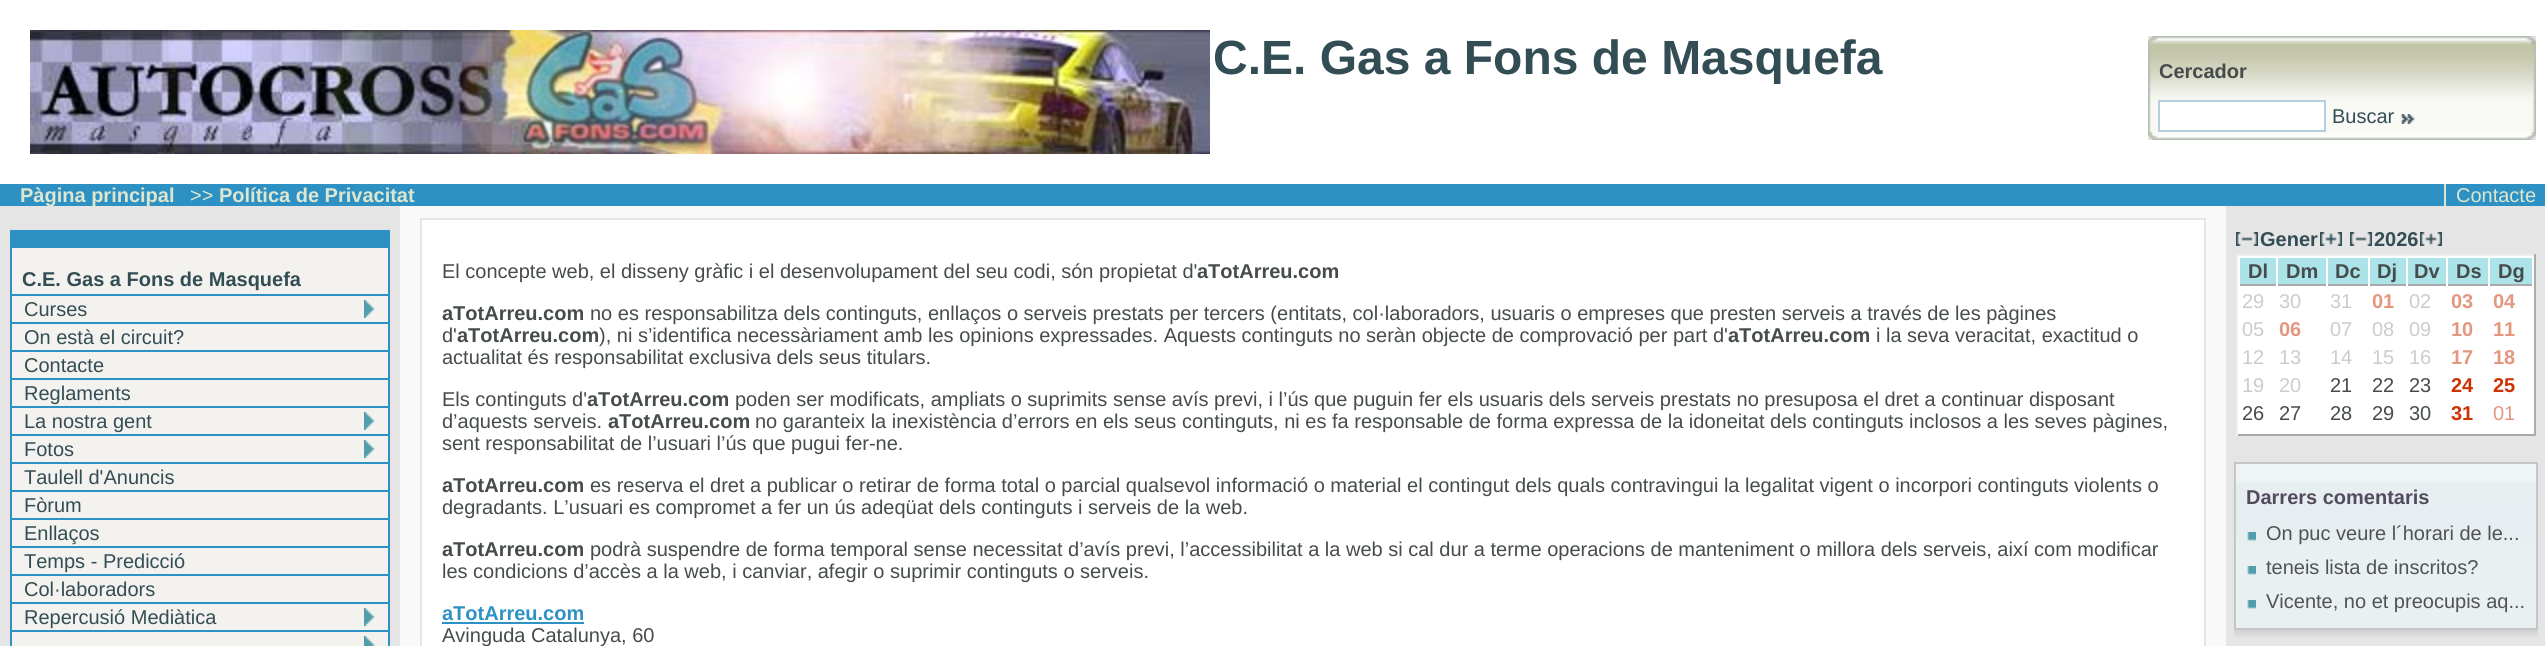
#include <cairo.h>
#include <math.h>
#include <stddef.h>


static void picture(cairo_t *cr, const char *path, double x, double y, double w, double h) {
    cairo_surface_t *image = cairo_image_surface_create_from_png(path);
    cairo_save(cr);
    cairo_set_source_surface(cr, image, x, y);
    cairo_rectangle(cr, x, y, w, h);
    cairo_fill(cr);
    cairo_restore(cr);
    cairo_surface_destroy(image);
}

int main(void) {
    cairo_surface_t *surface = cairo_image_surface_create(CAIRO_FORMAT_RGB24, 2545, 646);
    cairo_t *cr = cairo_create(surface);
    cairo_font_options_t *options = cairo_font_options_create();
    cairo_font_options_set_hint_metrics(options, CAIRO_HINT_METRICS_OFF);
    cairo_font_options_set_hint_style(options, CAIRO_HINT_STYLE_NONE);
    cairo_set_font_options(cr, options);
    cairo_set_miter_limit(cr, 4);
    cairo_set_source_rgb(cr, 1, 1, 1);
    cairo_paint(cr);
    picture(cr, "img1.png", 30, 30, 1180, 124);
    cairo_select_font_face(cr, "Liberation Sans", CAIRO_FONT_SLANT_NORMAL, CAIRO_FONT_WEIGHT_BOLD);
    cairo_set_font_size(cr, 48);
    cairo_set_source_rgb(cr, 0.2, 0.302, 0.333);
    cairo_move_to(cr, 1213, 74);
    cairo_show_text(cr, "C.E. Gas a Fons de Masquefa");
    picture(cr, "img2.png", 2148, 36, 10, 8);
    picture(cr, "img3.png", 2158, 36, 368, 8);
    picture(cr, "img4.png", 2526, 36, 10, 8);
    picture(cr, "img5.png", 2148, 44, 10, 56);
    picture(cr, "img6.png", 2158, 44, 368, 56);
    cairo_set_font_size(cr, 20);
    cairo_set_source_rgb(cr, 0.275, 0.294, 0.294);
    cairo_move_to(cr, 2159, 78);
    cairo_show_text(cr, "Cercador");
    picture(cr, "img7.png", 2526, 44, 10, 56);
    picture(cr, "img8.png", 2148, 100, 10, 32);
    cairo_set_source_rgb(cr, 0.973, 0.973, 0.961);
    cairo_rectangle(cr, 2326, 100, 200, 32);
    cairo_fill(cr);
    cairo_rectangle(cr, 2159, 101, 166, 30);
    cairo_set_source_rgb(cr, 0.714, 0.804, 0.878);
    cairo_stroke(cr);
    cairo_select_font_face(cr, "Liberation Sans", CAIRO_FONT_SLANT_NORMAL, CAIRO_FONT_WEIGHT_NORMAL);
    cairo_set_source_rgb(cr, 0.2, 0.302, 0.333);
    cairo_move_to(cr, 2332, 123);
    cairo_show_text(cr, "Buscar");
    picture(cr, "img9.png", 2401, 114, 14, 10);
    picture(cr, "img10.png", 2526, 100, 10, 32);
    picture(cr, "img11.png", 2148, 132, 10, 8);
    picture(cr, "img12.png", 2158, 132, 368, 8);
    picture(cr, "img13.png", 2526, 132, 10, 8);
    cairo_set_source_rgb(cr, 0.176, 0.573, 0.765);
    cairo_rectangle(cr, 0, 184, 2545, 22);
    cairo_fill(cr);
    cairo_set_source_rgb(cr, 0.898, 0.898, 0.898);
    cairo_rectangle(cr, 0, 206, 400, 440);
    cairo_fill(cr);
    cairo_select_font_face(cr, "Liberation Sans", CAIRO_FONT_SLANT_NORMAL, CAIRO_FONT_WEIGHT_BOLD);
    cairo_set_source_rgb(cr, 0.875, 0.902, 0.812);
    cairo_move_to(cr, 20, 202);
    cairo_show_text(cr, "Pàgina principal");
    cairo_select_font_face(cr, "Liberation Sans", CAIRO_FONT_SLANT_NORMAL, CAIRO_FONT_WEIGHT_NORMAL);
    cairo_move_to(cr, 190, 202);
    cairo_show_text(cr, ">>");
    cairo_select_font_face(cr, "Liberation Sans", CAIRO_FONT_SLANT_NORMAL, CAIRO_FONT_WEIGHT_BOLD);
    cairo_move_to(cr, 219, 202);
    cairo_show_text(cr, "Política de Privacitat");
    cairo_select_font_face(cr, "Liberation Sans", CAIRO_FONT_SLANT_NORMAL, CAIRO_FONT_WEIGHT_NORMAL);
    cairo_move_to(cr, 2456, 202);
    cairo_show_text(cr, "Contacte");
    cairo_rectangle(cr, 2444, 184, 2, 22);
    cairo_fill(cr);
    cairo_rectangle(cr, 11, 231, 378, 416);
    cairo_set_source_rgb(cr, 0.176, 0.573, 0.765);
    cairo_stroke(cr);
    cairo_rectangle(cr, 12, 232, 376, 16);
    cairo_fill(cr);
    cairo_set_source_rgb(cr, 0.953, 0.949, 0.933);
    cairo_rectangle(cr, 12, 248, 376, 46);
    cairo_fill(cr);
    cairo_select_font_face(cr, "Liberation Sans", CAIRO_FONT_SLANT_NORMAL, CAIRO_FONT_WEIGHT_BOLD);
    cairo_set_source_rgb(cr, 0.2, 0.302, 0.333);
    cairo_move_to(cr, 22, 286);
    cairo_show_text(cr, "C.E. Gas a Fons de Masquefa");
    cairo_set_source_rgb(cr, 0.953, 0.949, 0.933);
    cairo_rectangle(cr, 12, 296, 376, 350);
    cairo_fill(cr);
    cairo_set_source_rgb(cr, 0.176, 0.573, 0.765);
    cairo_rectangle(cr, 12, 294, 376, 2);
    cairo_fill(cr);
    picture(cr, "img14.png", 364, 300, 11, 18);
    cairo_rectangle(cr, 12, 322, 376, 2);
    cairo_fill(cr);
    cairo_select_font_face(cr, "Liberation Sans", CAIRO_FONT_SLANT_NORMAL, CAIRO_FONT_WEIGHT_NORMAL);
    cairo_set_source_rgb(cr, 0.2, 0.302, 0.333);
    cairo_move_to(cr, 24, 316);
    cairo_show_text(cr, "Curses");
    cairo_set_source_rgb(cr, 0.176, 0.573, 0.765);
    cairo_rectangle(cr, 12, 350, 376, 2);
    cairo_fill(cr);
    cairo_set_source_rgb(cr, 0.2, 0.302, 0.333);
    cairo_move_to(cr, 24, 344);
    cairo_show_text(cr, "On està el circuit?");
    cairo_set_source_rgb(cr, 0.176, 0.573, 0.765);
    cairo_rectangle(cr, 12, 378, 376, 2);
    cairo_fill(cr);
    cairo_set_source_rgb(cr, 0.2, 0.302, 0.333);
    cairo_move_to(cr, 24, 372);
    cairo_show_text(cr, "Contacte");
    cairo_set_source_rgb(cr, 0.176, 0.573, 0.765);
    cairo_rectangle(cr, 12, 406, 376, 2);
    cairo_fill(cr);
    cairo_set_source_rgb(cr, 0.2, 0.302, 0.333);
    cairo_move_to(cr, 24, 400);
    cairo_show_text(cr, "Reglaments");
    picture(cr, "img14.png", 364, 412, 11, 18);
    cairo_set_source_rgb(cr, 0.176, 0.573, 0.765);
    cairo_rectangle(cr, 12, 434, 376, 2);
    cairo_fill(cr);
    cairo_set_source_rgb(cr, 0.2, 0.302, 0.333);
    cairo_move_to(cr, 24, 428);
    cairo_show_text(cr, "La nostra gent");
    picture(cr, "img14.png", 364, 440, 11, 18);
    cairo_set_source_rgb(cr, 0.176, 0.573, 0.765);
    cairo_rectangle(cr, 12, 462, 376, 2);
    cairo_fill(cr);
    cairo_set_source_rgb(cr, 0.2, 0.302, 0.333);
    cairo_move_to(cr, 24, 456);
    cairo_show_text(cr, "Fotos");
    cairo_set_source_rgb(cr, 0.176, 0.573, 0.765);
    cairo_rectangle(cr, 12, 490, 376, 2);
    cairo_fill(cr);
    cairo_set_source_rgb(cr, 0.2, 0.302, 0.333);
    cairo_move_to(cr, 24, 484);
    cairo_show_text(cr, "Taulell d'Anuncis");
    cairo_set_source_rgb(cr, 0.176, 0.573, 0.765);
    cairo_rectangle(cr, 12, 518, 376, 2);
    cairo_fill(cr);
    cairo_set_source_rgb(cr, 0.2, 0.302, 0.333);
    cairo_move_to(cr, 24, 512);
    cairo_show_text(cr, "Fòrum");
    cairo_set_source_rgb(cr, 0.176, 0.573, 0.765);
    cairo_rectangle(cr, 12, 546, 376, 2);
    cairo_fill(cr);
    cairo_set_source_rgb(cr, 0.2, 0.302, 0.333);
    cairo_move_to(cr, 24, 540);
    cairo_show_text(cr, "Enllaços");
    cairo_set_source_rgb(cr, 0.176, 0.573, 0.765);
    cairo_rectangle(cr, 12, 574, 376, 2);
    cairo_fill(cr);
    cairo_set_source_rgb(cr, 0.2, 0.302, 0.333);
    cairo_move_to(cr, 24, 568);
    cairo_show_text(cr, "Temps - Predicció");
    cairo_set_source_rgb(cr, 0.176, 0.573, 0.765);
    cairo_rectangle(cr, 12, 602, 376, 2);
    cairo_fill(cr);
    cairo_set_source_rgb(cr, 0.2, 0.302, 0.333);
    cairo_move_to(cr, 24, 596);
    cairo_show_text(cr, "Col·laboradors");
    picture(cr, "img14.png", 364, 608, 11, 18);
    cairo_set_source_rgb(cr, 0.176, 0.573, 0.765);
    cairo_rectangle(cr, 12, 630, 376, 2);
    cairo_fill(cr);
    cairo_set_source_rgb(cr, 0.2, 0.302, 0.333);
    cairo_move_to(cr, 24, 624);
    cairo_show_text(cr, "Repercusió Mediàtica");
    picture(cr, "img15.png", 364, 636, 11, 10);
    cairo_set_source_rgb(cr, 0.976, 0.976, 0.976);
    cairo_rectangle(cr, 400, 206, 1826, 440);
    cairo_fill(cr);
    cairo_set_source_rgb(cr, 1, 1, 1);
    cairo_rectangle(cr, 421, 219, 1784, 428);
    cairo_fill_preserve(cr);
    cairo_set_source_rgb(cr, 0.898, 0.898, 0.898);
    cairo_stroke(cr);
    cairo_set_source_rgb(cr, 0.275, 0.294, 0.294);
    cairo_move_to(cr, 442, 278);
    cairo_show_text(cr, "El concepte web, el disseny gràfic i el desenvolupament del seu codi, són propietat d'");
    cairo_select_font_face(cr, "Liberation Sans", CAIRO_FONT_SLANT_NORMAL, CAIRO_FONT_WEIGHT_BOLD);
    cairo_move_to(cr, 1197, 278);
    cairo_show_text(cr, "aTotArreu.com");
    cairo_move_to(cr, 442, 320);
    cairo_show_text(cr, "aTotArreu.com");
    cairo_select_font_face(cr, "Liberation Sans", CAIRO_FONT_SLANT_NORMAL, CAIRO_FONT_WEIGHT_NORMAL);
    cairo_move_to(cr, 590, 320);
    cairo_show_text(cr, "no es responsabilitza dels continguts, enllaços o serveis prestats per tercers (entitats, col·laboradors, usuaris o empreses que presten serveis a través de les pàgines");
    cairo_move_to(cr, 442, 342);
    cairo_show_text(cr, "d'");
    cairo_select_font_face(cr, "Liberation Sans", CAIRO_FONT_SLANT_NORMAL, CAIRO_FONT_WEIGHT_BOLD);
    cairo_move_to(cr, 457, 342);
    cairo_show_text(cr, "aTotArreu.com");
    cairo_select_font_face(cr, "Liberation Sans", CAIRO_FONT_SLANT_NORMAL, CAIRO_FONT_WEIGHT_NORMAL);
    cairo_move_to(cr, 599, 342);
    cairo_show_text(cr, "), ni s’identifica necessàriament amb les opinions expressades. Aquests continguts no seràn objecte de comprovació per part d'");
    cairo_select_font_face(cr, "Liberation Sans", CAIRO_FONT_SLANT_NORMAL, CAIRO_FONT_WEIGHT_BOLD);
    cairo_move_to(cr, 1728, 342);
    cairo_show_text(cr, "aTotArreu.com");
    cairo_select_font_face(cr, "Liberation Sans", CAIRO_FONT_SLANT_NORMAL, CAIRO_FONT_WEIGHT_NORMAL);
    cairo_move_to(cr, 1876, 342);
    cairo_show_text(cr, "i la seva veracitat, exactitud o");
    cairo_move_to(cr, 442, 364);
    cairo_show_text(cr, "actualitat és responsabilitat exclusiva dels seus titulars.");
    cairo_move_to(cr, 442, 406);
    cairo_show_text(cr, "Els continguts d'");
    cairo_select_font_face(cr, "Liberation Sans", CAIRO_FONT_SLANT_NORMAL, CAIRO_FONT_WEIGHT_BOLD);
    cairo_move_to(cr, 587, 406);
    cairo_show_text(cr, "aTotArreu.com");
    cairo_select_font_face(cr, "Liberation Sans", CAIRO_FONT_SLANT_NORMAL, CAIRO_FONT_WEIGHT_NORMAL);
    cairo_move_to(cr, 735, 406);
    cairo_show_text(cr, "poden ser modificats, ampliats o suprimits sense avís previ, i l’ús que puguin fer els usuaris dels serveis prestats no presuposa el dret a continuar disposant");
    cairo_move_to(cr, 442, 428);
    cairo_show_text(cr, "d’aquests serveis.");
    cairo_select_font_face(cr, "Liberation Sans", CAIRO_FONT_SLANT_NORMAL, CAIRO_FONT_WEIGHT_BOLD);
    cairo_move_to(cr, 608, 428);
    cairo_show_text(cr, "aTotArreu.com");
    cairo_select_font_face(cr, "Liberation Sans", CAIRO_FONT_SLANT_NORMAL, CAIRO_FONT_WEIGHT_NORMAL);
    cairo_move_to(cr, 755, 428);
    cairo_show_text(cr, "no garanteix la inexistència d’errors en els seus continguts, ni es fa responsable de forma expressa de la idoneitat dels continguts inclosos a les seves pàgines,");
    cairo_move_to(cr, 442, 450);
    cairo_show_text(cr, "sent responsabilitat de l’usuari l’ús que pugui fer-ne.");
    cairo_select_font_face(cr, "Liberation Sans", CAIRO_FONT_SLANT_NORMAL, CAIRO_FONT_WEIGHT_BOLD);
    cairo_move_to(cr, 442, 492);
    cairo_show_text(cr, "aTotArreu.com");
    cairo_select_font_face(cr, "Liberation Sans", CAIRO_FONT_SLANT_NORMAL, CAIRO_FONT_WEIGHT_NORMAL);
    cairo_move_to(cr, 590, 492);
    cairo_show_text(cr, "es reserva el dret a publicar o retirar de forma total o parcial qualsevol informació o material el contingut dels quals contravingui la legalitat vigent o incorpori continguts violents o");
    cairo_move_to(cr, 442, 514);
    cairo_show_text(cr, "degradants. L’usuari es compromet a fer un ús adeqüat dels continguts i serveis de la web.");
    cairo_select_font_face(cr, "Liberation Sans", CAIRO_FONT_SLANT_NORMAL, CAIRO_FONT_WEIGHT_BOLD);
    cairo_move_to(cr, 442, 556);
    cairo_show_text(cr, "aTotArreu.com");
    cairo_select_font_face(cr, "Liberation Sans", CAIRO_FONT_SLANT_NORMAL, CAIRO_FONT_WEIGHT_NORMAL);
    cairo_move_to(cr, 590, 556);
    cairo_show_text(cr, "podrà suspendre de forma temporal sense necessitat d’avís previ, l’accessibilitat a la web si cal dur a terme operacions de manteniment o millora dels serveis, així com modificar");
    cairo_move_to(cr, 442, 578);
    cairo_show_text(cr, "les condicions d’accès a la web, i canviar, afegir o suprimir continguts o serveis.");
    cairo_select_font_face(cr, "Liberation Sans", CAIRO_FONT_SLANT_NORMAL, CAIRO_FONT_WEIGHT_BOLD);
    cairo_set_source_rgb(cr, 0.176, 0.573, 0.765);
    cairo_move_to(cr, 442, 620);
    cairo_show_text(cr, "aTotArreu.com");
    cairo_rectangle(cr, 442, 622, 142, 2);
    cairo_fill(cr);
    cairo_select_font_face(cr, "Liberation Sans", CAIRO_FONT_SLANT_NORMAL, CAIRO_FONT_WEIGHT_NORMAL);
    cairo_set_source_rgb(cr, 0.275, 0.294, 0.294);
    cairo_move_to(cr, 442, 642);
    cairo_show_text(cr, "Avinguda Catalunya, 60");
    cairo_set_source_rgb(cr, 0.898, 0.898, 0.898);
    cairo_rectangle(cr, 2226, 206, 319, 440);
    cairo_fill(cr);
    picture(cr, "img16.png", 2236, 232, 22, 14);
    cairo_select_font_face(cr, "Liberation Sans", CAIRO_FONT_SLANT_NORMAL, CAIRO_FONT_WEIGHT_BOLD);
    cairo_set_source_rgb(cr, 0.2, 0.302, 0.333);
    cairo_move_to(cr, 2260, 246);
    cairo_show_text(cr, "Gener");
    picture(cr, "img17.png", 2320, 232, 22, 14);
    picture(cr, "img16.png", 2350, 232, 22, 14);
    cairo_move_to(cr, 2374, 246);
    cairo_show_text(cr, "2026");
    picture(cr, "img17.png", 2420, 232, 22, 14);
    cairo_set_source_rgb(cr, 1, 1, 1);
    cairo_rectangle(cr, 2238, 256, 296, 178);
    cairo_fill(cr);
    cairo_set_source_rgb(cr, 0.933, 0.933, 0.933);
    cairo_rectangle(cr, 2236, 254, 300, 2);
    cairo_fill(cr);
    cairo_set_source_rgb(cr, 0.667, 0.667, 0.667);
    cairo_rectangle(cr, 2534, 254, 2, 182);
    cairo_fill(cr);
    cairo_rectangle(cr, 2236, 434, 300, 2);
    cairo_fill(cr);
    cairo_set_source_rgb(cr, 0.933, 0.933, 0.933);
    cairo_rectangle(cr, 2236, 254, 2, 182);
    cairo_fill(cr);
    cairo_set_source_rgb(cr, 0.671, 0.89, 0.91);
    cairo_rectangle(cr, 2240, 258, 36, 26);
    cairo_fill(cr);
    cairo_set_source_rgb(cr, 0.667, 0.667, 0.667);
    cairo_rectangle(cr, 2240, 284, 36, 2);
    cairo_fill(cr);
    cairo_set_source_rgb(cr, 0.275, 0.294, 0.294);
    cairo_move_to(cr, 2248, 278);
    cairo_show_text(cr, "Dl");
    cairo_set_source_rgb(cr, 0.671, 0.89, 0.91);
    cairo_rectangle(cr, 2278, 258, 48, 26);
    cairo_fill(cr);
    cairo_set_source_rgb(cr, 0.667, 0.667, 0.667);
    cairo_rectangle(cr, 2278, 284, 48, 2);
    cairo_fill(cr);
    cairo_set_source_rgb(cr, 0.275, 0.294, 0.294);
    cairo_move_to(cr, 2286, 278);
    cairo_show_text(cr, "Dm");
    cairo_set_source_rgb(cr, 0.671, 0.89, 0.91);
    cairo_rectangle(cr, 2328, 258, 40, 26);
    cairo_fill(cr);
    cairo_set_source_rgb(cr, 0.667, 0.667, 0.667);
    cairo_rectangle(cr, 2328, 284, 40, 2);
    cairo_fill(cr);
    cairo_set_source_rgb(cr, 0.275, 0.294, 0.294);
    cairo_move_to(cr, 2335, 278);
    cairo_show_text(cr, "Dc");
    cairo_set_source_rgb(cr, 0.671, 0.89, 0.91);
    cairo_rectangle(cr, 2370, 258, 36, 26);
    cairo_fill(cr);
    cairo_set_source_rgb(cr, 0.667, 0.667, 0.667);
    cairo_rectangle(cr, 2370, 284, 36, 2);
    cairo_fill(cr);
    cairo_set_source_rgb(cr, 0.275, 0.294, 0.294);
    cairo_move_to(cr, 2377, 278);
    cairo_show_text(cr, "Dj");
    cairo_set_source_rgb(cr, 0.671, 0.89, 0.91);
    cairo_rectangle(cr, 2408, 258, 38, 26);
    cairo_fill(cr);
    cairo_set_source_rgb(cr, 0.667, 0.667, 0.667);
    cairo_rectangle(cr, 2408, 284, 38, 2);
    cairo_fill(cr);
    cairo_set_source_rgb(cr, 0.275, 0.294, 0.294);
    cairo_move_to(cr, 2414, 278);
    cairo_show_text(cr, "Dv");
    cairo_set_source_rgb(cr, 0.671, 0.89, 0.91);
    cairo_rectangle(cr, 2448, 258, 40, 26);
    cairo_fill(cr);
    cairo_set_source_rgb(cr, 0.667, 0.667, 0.667);
    cairo_rectangle(cr, 2448, 284, 40, 2);
    cairo_fill(cr);
    cairo_set_source_rgb(cr, 0.275, 0.294, 0.294);
    cairo_move_to(cr, 2456, 278);
    cairo_show_text(cr, "Ds");
    cairo_set_source_rgb(cr, 0.671, 0.89, 0.91);
    cairo_rectangle(cr, 2490, 258, 42, 26);
    cairo_fill(cr);
    cairo_set_source_rgb(cr, 0.667, 0.667, 0.667);
    cairo_rectangle(cr, 2490, 284, 42, 2);
    cairo_fill(cr);
    cairo_set_source_rgb(cr, 0.275, 0.294, 0.294);
    cairo_move_to(cr, 2498, 278);
    cairo_show_text(cr, "Dg");
    cairo_select_font_face(cr, "Liberation Sans", CAIRO_FONT_SLANT_NORMAL, CAIRO_FONT_WEIGHT_NORMAL);
    cairo_set_source_rgb(cr, 0.8, 0.8, 0.8);
    cairo_move_to(cr, 2242, 308);
    cairo_show_text(cr, "29");
    cairo_move_to(cr, 2279, 308);
    cairo_show_text(cr, "30");
    cairo_move_to(cr, 2330, 308);
    cairo_show_text(cr, "31");
    cairo_select_font_face(cr, "Liberation Sans", CAIRO_FONT_SLANT_NORMAL, CAIRO_FONT_WEIGHT_BOLD);
    cairo_set_source_rgb(cr, 0.894, 0.592, 0.494);
    cairo_move_to(cr, 2372, 308);
    cairo_show_text(cr, "01");
    cairo_select_font_face(cr, "Liberation Sans", CAIRO_FONT_SLANT_NORMAL, CAIRO_FONT_WEIGHT_NORMAL);
    cairo_set_source_rgb(cr, 0.8, 0.8, 0.8);
    cairo_move_to(cr, 2409, 308);
    cairo_show_text(cr, "02");
    cairo_select_font_face(cr, "Liberation Sans", CAIRO_FONT_SLANT_NORMAL, CAIRO_FONT_WEIGHT_BOLD);
    cairo_set_source_rgb(cr, 0.894, 0.592, 0.494);
    cairo_move_to(cr, 2451, 308);
    cairo_show_text(cr, "03");
    cairo_move_to(cr, 2493, 308);
    cairo_show_text(cr, "04");
    cairo_select_font_face(cr, "Liberation Sans", CAIRO_FONT_SLANT_NORMAL, CAIRO_FONT_WEIGHT_NORMAL);
    cairo_set_source_rgb(cr, 0.8, 0.8, 0.8);
    cairo_move_to(cr, 2242, 336);
    cairo_show_text(cr, "05");
    cairo_select_font_face(cr, "Liberation Sans", CAIRO_FONT_SLANT_NORMAL, CAIRO_FONT_WEIGHT_BOLD);
    cairo_set_source_rgb(cr, 0.894, 0.592, 0.494);
    cairo_move_to(cr, 2279, 336);
    cairo_show_text(cr, "06");
    cairo_select_font_face(cr, "Liberation Sans", CAIRO_FONT_SLANT_NORMAL, CAIRO_FONT_WEIGHT_NORMAL);
    cairo_set_source_rgb(cr, 0.8, 0.8, 0.8);
    cairo_move_to(cr, 2330, 336);
    cairo_show_text(cr, "07");
    cairo_move_to(cr, 2372, 336);
    cairo_show_text(cr, "08");
    cairo_move_to(cr, 2409, 336);
    cairo_show_text(cr, "09");
    cairo_select_font_face(cr, "Liberation Sans", CAIRO_FONT_SLANT_NORMAL, CAIRO_FONT_WEIGHT_BOLD);
    cairo_set_source_rgb(cr, 0.894, 0.592, 0.494);
    cairo_move_to(cr, 2451, 336);
    cairo_show_text(cr, "10");
    cairo_move_to(cr, 2493, 336);
    cairo_show_text(cr, "11");
    cairo_select_font_face(cr, "Liberation Sans", CAIRO_FONT_SLANT_NORMAL, CAIRO_FONT_WEIGHT_NORMAL);
    cairo_set_source_rgb(cr, 0.8, 0.8, 0.8);
    cairo_move_to(cr, 2242, 364);
    cairo_show_text(cr, "12");
    cairo_move_to(cr, 2279, 364);
    cairo_show_text(cr, "13");
    cairo_move_to(cr, 2330, 364);
    cairo_show_text(cr, "14");
    cairo_move_to(cr, 2372, 364);
    cairo_show_text(cr, "15");
    cairo_move_to(cr, 2409, 364);
    cairo_show_text(cr, "16");
    cairo_select_font_face(cr, "Liberation Sans", CAIRO_FONT_SLANT_NORMAL, CAIRO_FONT_WEIGHT_BOLD);
    cairo_set_source_rgb(cr, 0.894, 0.592, 0.494);
    cairo_move_to(cr, 2451, 364);
    cairo_show_text(cr, "17");
    cairo_move_to(cr, 2493, 364);
    cairo_show_text(cr, "18");
    cairo_select_font_face(cr, "Liberation Sans", CAIRO_FONT_SLANT_NORMAL, CAIRO_FONT_WEIGHT_NORMAL);
    cairo_set_source_rgb(cr, 0.8, 0.8, 0.8);
    cairo_move_to(cr, 2242, 392);
    cairo_show_text(cr, "19");
    cairo_move_to(cr, 2279, 392);
    cairo_show_text(cr, "20");
    cairo_set_source_rgb(cr, 0.275, 0.294, 0.294);
    cairo_move_to(cr, 2330, 392);
    cairo_show_text(cr, "21");
    cairo_move_to(cr, 2372, 392);
    cairo_show_text(cr, "22");
    cairo_move_to(cr, 2409, 392);
    cairo_show_text(cr, "23");
    cairo_select_font_face(cr, "Liberation Sans", CAIRO_FONT_SLANT_NORMAL, CAIRO_FONT_WEIGHT_BOLD);
    cairo_set_source_rgb(cr, 0.8, 0.2, 0);
    cairo_move_to(cr, 2451, 392);
    cairo_show_text(cr, "24");
    cairo_move_to(cr, 2493, 392);
    cairo_show_text(cr, "25");
    cairo_select_font_face(cr, "Liberation Sans", CAIRO_FONT_SLANT_NORMAL, CAIRO_FONT_WEIGHT_NORMAL);
    cairo_set_source_rgb(cr, 0.275, 0.294, 0.294);
    cairo_move_to(cr, 2242, 420);
    cairo_show_text(cr, "26");
    cairo_move_to(cr, 2279, 420);
    cairo_show_text(cr, "27");
    cairo_move_to(cr, 2330, 420);
    cairo_show_text(cr, "28");
    cairo_move_to(cr, 2372, 420);
    cairo_show_text(cr, "29");
    cairo_move_to(cr, 2409, 420);
    cairo_show_text(cr, "30");
    cairo_select_font_face(cr, "Liberation Sans", CAIRO_FONT_SLANT_NORMAL, CAIRO_FONT_WEIGHT_BOLD);
    cairo_set_source_rgb(cr, 0.8, 0.2, 0);
    cairo_move_to(cr, 2451, 420);
    cairo_show_text(cr, "31");
    cairo_select_font_face(cr, "Liberation Sans", CAIRO_FONT_SLANT_NORMAL, CAIRO_FONT_WEIGHT_NORMAL);
    cairo_set_source_rgb(cr, 0.894, 0.592, 0.494);
    cairo_move_to(cr, 2493, 420);
    cairo_show_text(cr, "01");
    picture(cr, "img18.png", 2236, 464, 300, 164);
    cairo_rectangle(cr, 2235, 463, 302, 166);
    cairo_set_source_rgb(cr, 0.776, 0.776, 0.776);
    cairo_stroke(cr);
    cairo_select_font_face(cr, "Liberation Sans", CAIRO_FONT_SLANT_NORMAL, CAIRO_FONT_WEIGHT_BOLD);
    cairo_set_source_rgb(cr, 0.322, 0.294, 0.357);
    cairo_move_to(cr, 2246, 504);
    cairo_show_text(cr, "Darrers comentaris");
    picture(cr, "img19.png", 2247, 532, 9, 9);
    cairo_select_font_face(cr, "Liberation Sans", CAIRO_FONT_SLANT_NORMAL, CAIRO_FONT_WEIGHT_NORMAL);
    cairo_set_source_rgb(cr, 0.322, 0.322, 0.322);
    cairo_move_to(cr, 2266, 540);
    cairo_show_text(cr, "On puc veure l´horari de le...");
    picture(cr, "img20.png", 2247, 566, 9, 9);
    cairo_move_to(cr, 2266, 574);
    cairo_show_text(cr, "teneis lista de inscritos?");
    picture(cr, "img20.png", 2247, 600, 9, 9);
    cairo_move_to(cr, 2266, 608);
    cairo_show_text(cr, "Vicente, no et preocupis aq...");
    picture(cr, "img21.png", 2234, 630, 304, 7);
    cairo_surface_write_to_png(surface, "page.png");
    cairo_font_options_destroy(options);
    cairo_destroy(cr);
    cairo_surface_destroy(surface);
    return 0;
}
